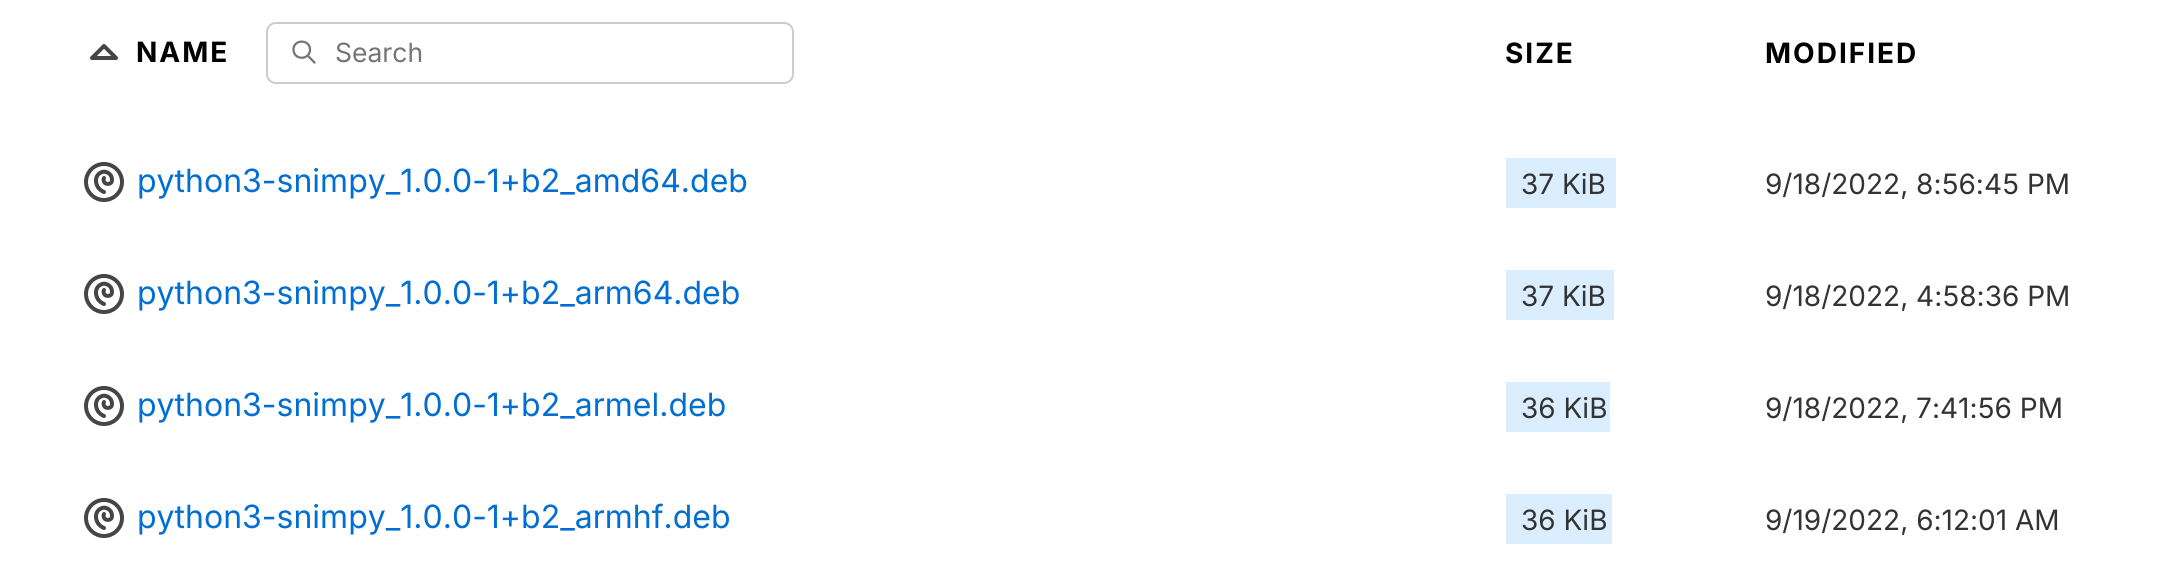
#include <cairo.h>
#include <math.h>
#include <stddef.h>


static void spaced_text(cairo_t *cr, double x, double y, const char *s, double letter, double word) {
    cairo_move_to(cr, x, y);
    while (*s) {
        char ch[5] = {0};
        int n = 0;
        do ch[n++] = *s++; while ((*s & 0xC0) == 0x80);
        cairo_show_text(cr, ch);
        cairo_rel_move_to(cr, letter + word * (*ch == ' '), 0);
    }
}

static void round_rect(cairo_t *cr, double x, double y, double w, double h, double r) {
    cairo_new_sub_path(cr);
    cairo_arc(cr, x + w - r, y + h - r, r, 0, M_PI / 2);
    cairo_arc(cr, x + r, y + h - r, r, M_PI / 2, M_PI);
    cairo_arc(cr, x + r, y + r, r, M_PI, 1.5 * M_PI);
    cairo_arc(cr, x + w - r, y + r, r, 1.5 * M_PI, 2 * M_PI);
    cairo_close_path(cr);
}

static void picture(cairo_t *cr, const char *path, double x, double y, double w, double h) {
    cairo_surface_t *image = cairo_image_surface_create_from_png(path);
    cairo_save(cr);
    cairo_set_source_surface(cr, image, x, y);
    cairo_rectangle(cr, x, y, w, h);
    cairo_fill(cr);
    cairo_restore(cr);
    cairo_surface_destroy(image);
}

int main(void) {
    cairo_surface_t *surface = cairo_image_surface_create(CAIRO_FORMAT_RGB24, 2170, 570);
    cairo_t *cr = cairo_create(surface);
    cairo_font_options_t *options = cairo_font_options_create();
    cairo_font_options_set_hint_metrics(options, CAIRO_HINT_METRICS_OFF);
    cairo_font_options_set_hint_style(options, CAIRO_HINT_STYLE_NONE);
    cairo_set_font_options(cr, options);
    cairo_set_miter_limit(cr, 4);
    cairo_set_source_rgb(cr, 1, 1, 1);
    cairo_paint(cr);
    cairo_new_path(cr);
    cairo_move_to(cr, 116, 58);
    cairo_line_to(cr, 104, 46);
    cairo_line_to(cr, 92, 58);
    cairo_line_to(cr, 116, 58);
    cairo_set_source_rgb(cr, 0.271, 0.271, 0.271);
    cairo_set_line_width(cr, 4);
    cairo_set_line_cap(cr, CAIRO_LINE_CAP_ROUND);
    cairo_set_line_join(cr, CAIRO_LINE_JOIN_ROUND);
    cairo_stroke(cr);
    cairo_select_font_face(cr, "Inter", CAIRO_FONT_SLANT_NORMAL, CAIRO_FONT_WEIGHT_BOLD);
    cairo_set_font_size(cr, 28);
    cairo_set_source_rgb(cr, 0, 0, 0);
    spaced_text(cr, 136, 62, "NAME", 2, 0);
    cairo_new_path(cr);
    cairo_move_to(cr, 293.5, 49.5);
    cairo_curve_to(cr, 293.5, 60.5, 310, 60.5, 310, 49.5);
    cairo_curve_to(cr, 310, 39, 293.5, 39, 293.5, 49.5);
    cairo_move_to(cr, 314.5, 62.5);
    cairo_line_to(cr, 307.5, 55.5);
    cairo_set_source_rgb(cr, 0.467, 0.467, 0.467);
    cairo_set_line_width(cr, 2.3);
    cairo_stroke(cr);
    round_rect(cr, 267, 23, 526, 60, 9);
    cairo_set_source_rgb(cr, 0.8, 0.8, 0.8);
    cairo_set_line_width(cr, 2);
    cairo_set_line_cap(cr, CAIRO_LINE_CAP_BUTT);
    cairo_set_line_join(cr, CAIRO_LINE_JOIN_MITER);
    cairo_stroke(cr);
    cairo_select_font_face(cr, "Inter", CAIRO_FONT_SLANT_NORMAL, CAIRO_FONT_WEIGHT_NORMAL);
    cairo_set_font_size(cr, 26.5);
    cairo_set_source_rgb(cr, 0.459, 0.459, 0.459);
    cairo_move_to(cr, 335, 62);
    cairo_show_text(cr, "Search");
    cairo_select_font_face(cr, "Inter", CAIRO_FONT_SLANT_NORMAL, CAIRO_FONT_WEIGHT_BOLD);
    cairo_set_font_size(cr, 28);
    cairo_set_source_rgb(cr, 0, 0, 0);
    spaced_text(cr, 1505, 63, "SIZE", 2, 0);
    spaced_text(cr, 1765, 63, "MODIFIED", 2, 0);
    picture(cr, "img1.png", 84, 162, 40, 40);
    cairo_select_font_face(cr, "Inter", CAIRO_FONT_SLANT_NORMAL, CAIRO_FONT_WEIGHT_NORMAL);
    cairo_set_font_size(cr, 32);
    cairo_set_source_rgb(cr, 0, 0.431, 0.827);
    cairo_move_to(cr, 137, 192);
    cairo_show_text(cr, "python3-snimpy_1.0.0-1+b2_amd64.deb");
    cairo_set_source_rgb(cr, 0.859, 0.933, 1);
    cairo_rectangle(cr, 1506, 158, 110, 50);
    cairo_fill(cr);
    cairo_set_font_size(cr, 28);
    cairo_set_source_rgb(cr, 0.2, 0.2, 0.2);
    cairo_move_to(cr, 1521, 194);
    cairo_show_text(cr, "37 KiB");
    cairo_move_to(cr, 1765, 194);
    cairo_show_text(cr, "9/18/2022, 8:56:45 PM");
    picture(cr, "img1.png", 84, 274, 40, 40);
    cairo_set_font_size(cr, 32);
    cairo_set_source_rgb(cr, 0, 0.431, 0.827);
    cairo_move_to(cr, 137, 304);
    cairo_show_text(cr, "python3-snimpy_1.0.0-1+b2_arm64.deb");
    cairo_set_source_rgb(cr, 0.859, 0.933, 1);
    cairo_rectangle(cr, 1506, 270, 108, 50);
    cairo_fill(cr);
    cairo_set_font_size(cr, 28);
    cairo_set_source_rgb(cr, 0.2, 0.2, 0.2);
    cairo_move_to(cr, 1521, 306);
    cairo_show_text(cr, "37 KiB");
    cairo_move_to(cr, 1765, 306);
    cairo_show_text(cr, "9/18/2022, 4:58:36 PM");
    picture(cr, "img1.png", 84, 386, 40, 40);
    cairo_set_font_size(cr, 32);
    cairo_set_source_rgb(cr, 0, 0.431, 0.827);
    cairo_move_to(cr, 137, 416);
    cairo_show_text(cr, "python3-snimpy_1.0.0-1+b2_armel.deb");
    cairo_set_source_rgb(cr, 0.859, 0.933, 1);
    cairo_rectangle(cr, 1506, 382, 104, 50);
    cairo_fill(cr);
    cairo_set_font_size(cr, 28);
    cairo_set_source_rgb(cr, 0.2, 0.2, 0.2);
    cairo_move_to(cr, 1521, 418);
    cairo_show_text(cr, "36 KiB");
    cairo_move_to(cr, 1765, 418);
    cairo_show_text(cr, "9/18/2022, 7:41:56 PM");
    picture(cr, "img1.png", 84, 498, 40, 40);
    cairo_set_font_size(cr, 32);
    cairo_set_source_rgb(cr, 0, 0.431, 0.827);
    cairo_move_to(cr, 137, 528);
    cairo_show_text(cr, "python3-snimpy_1.0.0-1+b2_armhf.deb");
    cairo_set_source_rgb(cr, 0.859, 0.933, 1);
    cairo_rectangle(cr, 1506, 494, 106, 50);
    cairo_fill(cr);
    cairo_set_font_size(cr, 28);
    cairo_set_source_rgb(cr, 0.2, 0.2, 0.2);
    cairo_move_to(cr, 1521, 530);
    cairo_show_text(cr, "36 KiB");
    cairo_move_to(cr, 1765, 530);
    cairo_show_text(cr, "9/19/2022, 6:12:01 AM");
    cairo_surface_write_to_png(surface, "page.png");
    cairo_font_options_destroy(options);
    cairo_destroy(cr);
    cairo_surface_destroy(surface);
    return 0;
}
